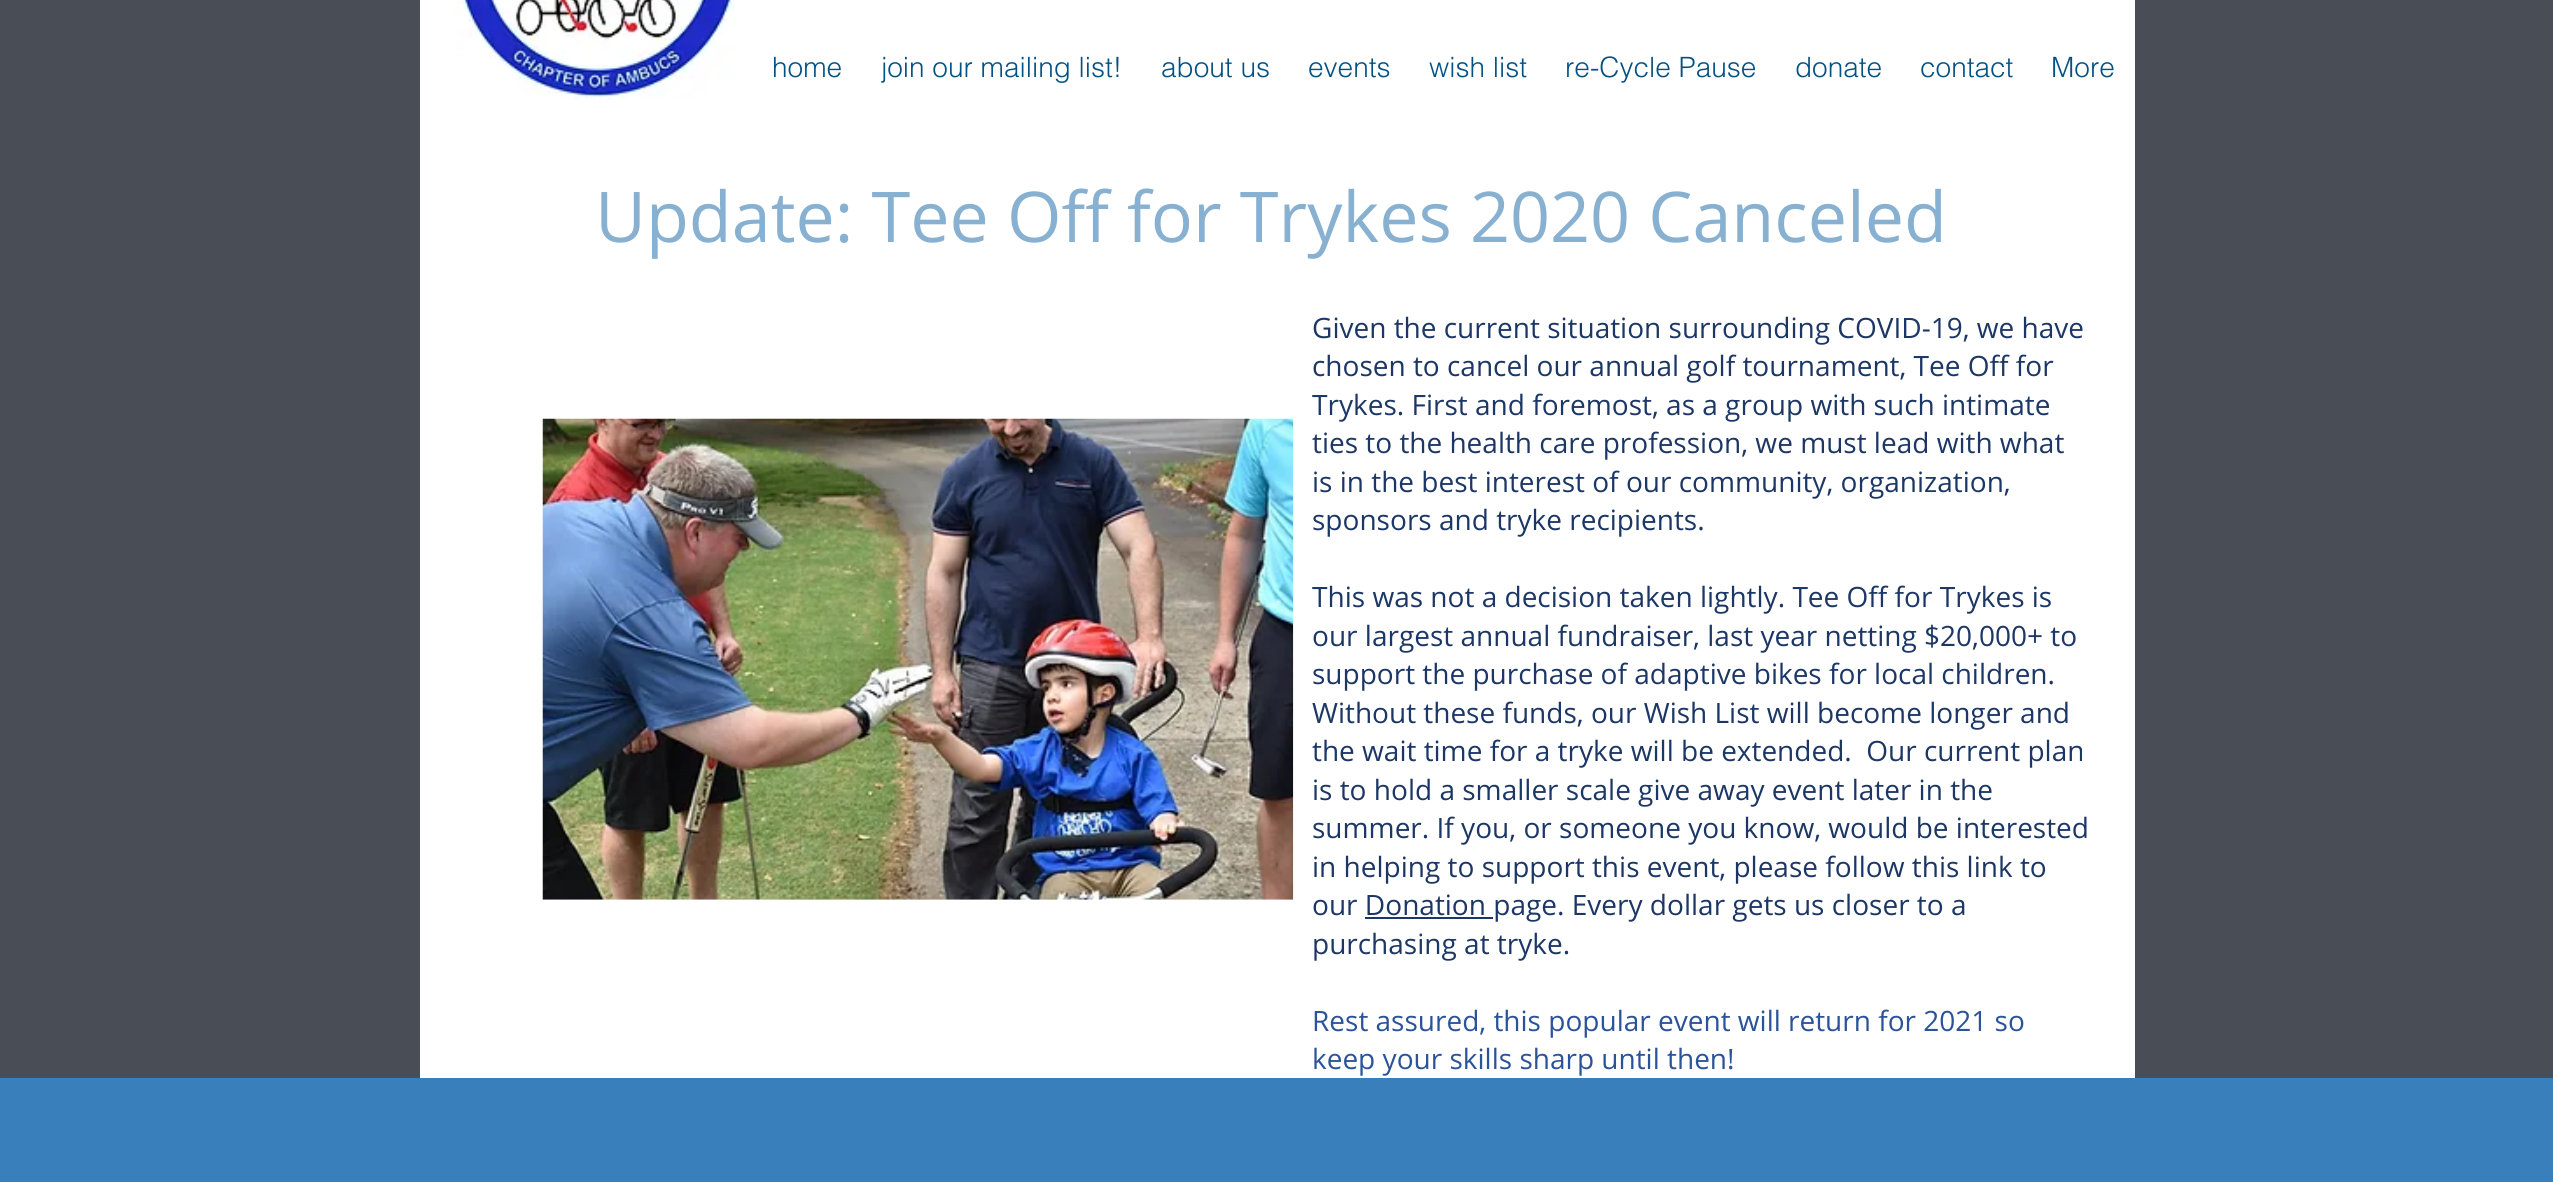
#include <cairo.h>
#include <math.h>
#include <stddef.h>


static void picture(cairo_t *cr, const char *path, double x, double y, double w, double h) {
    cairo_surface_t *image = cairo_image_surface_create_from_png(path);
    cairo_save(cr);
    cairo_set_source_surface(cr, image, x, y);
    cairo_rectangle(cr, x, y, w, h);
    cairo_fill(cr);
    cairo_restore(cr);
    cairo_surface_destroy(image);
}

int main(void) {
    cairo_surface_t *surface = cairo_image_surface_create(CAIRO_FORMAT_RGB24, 2553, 1182);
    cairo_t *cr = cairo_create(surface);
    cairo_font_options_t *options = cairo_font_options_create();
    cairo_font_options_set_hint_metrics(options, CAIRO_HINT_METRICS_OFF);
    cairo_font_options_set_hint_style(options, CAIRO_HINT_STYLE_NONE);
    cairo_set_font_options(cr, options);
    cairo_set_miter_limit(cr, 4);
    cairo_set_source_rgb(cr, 0.282, 0.302, 0.337);
    cairo_paint(cr);
    cairo_set_source_rgb(cr, 1, 1, 1);
    cairo_rectangle(cr, 420, 0, 1715, 1078);
    cairo_fill(cr);
    picture(cr, "img1.png", 455, 0, 281, 100);
    cairo_select_font_face(cr, "helvetica Light", CAIRO_FONT_SLANT_NORMAL, CAIRO_FONT_WEIGHT_NORMAL);
    cairo_set_font_size(cr, 28);
    cairo_set_source_rgb(cr, 0.016, 0.318, 0.518);
    cairo_move_to(cr, 772, 77);
    cairo_show_text(cr, "home");
    cairo_move_to(cr, 881, 77);
    cairo_show_text(cr, "join our mailing list!");
    cairo_move_to(cr, 1161, 77);
    cairo_show_text(cr, "about us");
    cairo_move_to(cr, 1308, 77);
    cairo_show_text(cr, "events");
    cairo_move_to(cr, 1429, 77);
    cairo_show_text(cr, "wish list");
    cairo_move_to(cr, 1565, 77);
    cairo_show_text(cr, "re-Cycle Pause");
    cairo_move_to(cr, 1795, 77);
    cairo_show_text(cr, "donate");
    cairo_move_to(cr, 1920, 77);
    cairo_show_text(cr, "contact");
    cairo_move_to(cr, 2051, 77);
    cairo_show_text(cr, "More");
    cairo_select_font_face(cr, "Open Sans", CAIRO_FONT_SLANT_NORMAL, CAIRO_FONT_WEIGHT_NORMAL);
    cairo_set_font_size(cr, 70);
    cairo_set_source_rgb(cr, 0.529, 0.69, 0.82);
    cairo_move_to(cr, 595, 242);
    cairo_show_text(cr, "Update: Tee Off for Trykes 2020 Canceled");
    picture(cr, "img2.png", 542, 418, 752, 482);
    cairo_set_font_size(cr, 28);
    cairo_set_source_rgb(cr, 0.11, 0.216, 0.4);
    cairo_move_to(cr, 1312, 338);
    cairo_show_text(cr, "Given the current situation surrounding COVID-19, we have");
    cairo_move_to(cr, 1312, 376);
    cairo_show_text(cr, "chosen to cancel our annual golf tournament, Tee Off for");
    cairo_move_to(cr, 1312, 415);
    cairo_show_text(cr, "Trykes. First and foremost, as a group with such intimate");
    cairo_move_to(cr, 1312, 453);
    cairo_show_text(cr, "ties to the health care profession, we must lead with what");
    cairo_move_to(cr, 1312, 492);
    cairo_show_text(cr, "is in the best interest of our community, organization,");
    cairo_move_to(cr, 1312, 530);
    cairo_show_text(cr, "sponsors and tryke recipients.");
    cairo_move_to(cr, 1312, 607);
    cairo_show_text(cr, "This was not a decision taken lightly. Tee Off for Trykes is");
    cairo_move_to(cr, 1312, 646);
    cairo_show_text(cr, "our largest annual fundraiser, last year netting $20,000+ to");
    cairo_move_to(cr, 1312, 684);
    cairo_show_text(cr, "support the purchase of adaptive bikes for local children.");
    cairo_move_to(cr, 1312, 723);
    cairo_show_text(cr, "Without these funds, our Wish List will become longer and");
    cairo_move_to(cr, 1312, 761);
    cairo_show_text(cr, "the wait time for a tryke will be extended.  Our current plan");
    cairo_move_to(cr, 1312, 800);
    cairo_show_text(cr, "is to hold a smaller scale give away event later in the");
    cairo_move_to(cr, 1312, 838);
    cairo_show_text(cr, "summer. If you, or someone you know, would be interested");
    cairo_move_to(cr, 1312, 877);
    cairo_show_text(cr, "in helping to support this event, please follow this link to");
    cairo_move_to(cr, 1312, 915);
    cairo_show_text(cr, "our Donation page. Every dollar gets us closer to a");
    cairo_rectangle(cr, 1365, 917, 128, 2);
    cairo_fill(cr);
    cairo_move_to(cr, 1312, 954);
    cairo_show_text(cr, "purchasing at tryke.");
    cairo_set_source_rgb(cr, 0.165, 0.325, 0.6);
    cairo_move_to(cr, 1312, 1031);
    cairo_show_text(cr, "Rest assured, this popular event will return for 2021 so");
    cairo_move_to(cr, 1312, 1069);
    cairo_show_text(cr, "keep your skills sharp until then!");
    cairo_set_source_rgb(cr, 0.22, 0.498, 0.733);
    cairo_rectangle(cr, 0, 1078, 2553, 104);
    cairo_fill(cr);
    cairo_surface_write_to_png(surface, "page.png");
    cairo_font_options_destroy(options);
    cairo_destroy(cr);
    cairo_surface_destroy(surface);
    return 0;
}
